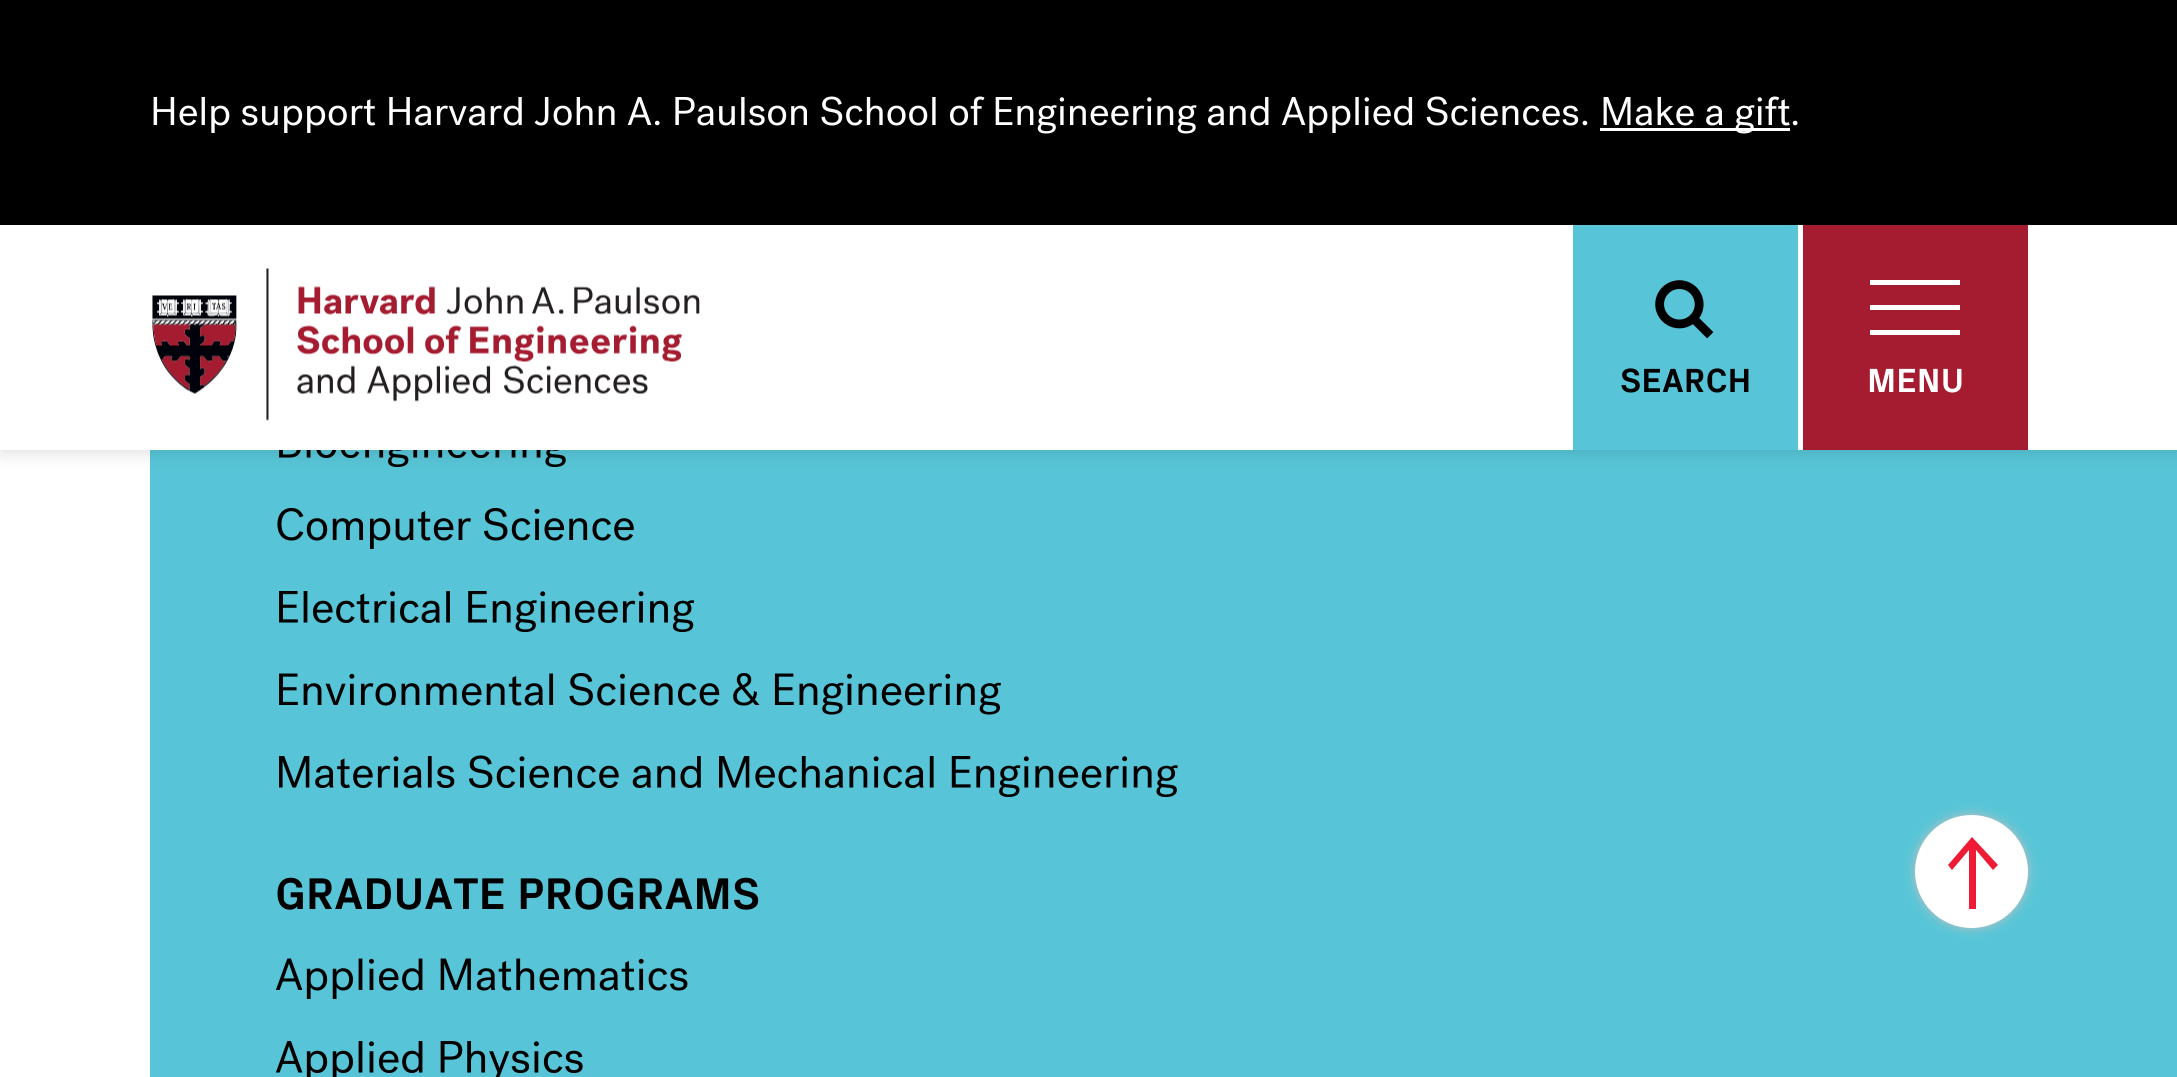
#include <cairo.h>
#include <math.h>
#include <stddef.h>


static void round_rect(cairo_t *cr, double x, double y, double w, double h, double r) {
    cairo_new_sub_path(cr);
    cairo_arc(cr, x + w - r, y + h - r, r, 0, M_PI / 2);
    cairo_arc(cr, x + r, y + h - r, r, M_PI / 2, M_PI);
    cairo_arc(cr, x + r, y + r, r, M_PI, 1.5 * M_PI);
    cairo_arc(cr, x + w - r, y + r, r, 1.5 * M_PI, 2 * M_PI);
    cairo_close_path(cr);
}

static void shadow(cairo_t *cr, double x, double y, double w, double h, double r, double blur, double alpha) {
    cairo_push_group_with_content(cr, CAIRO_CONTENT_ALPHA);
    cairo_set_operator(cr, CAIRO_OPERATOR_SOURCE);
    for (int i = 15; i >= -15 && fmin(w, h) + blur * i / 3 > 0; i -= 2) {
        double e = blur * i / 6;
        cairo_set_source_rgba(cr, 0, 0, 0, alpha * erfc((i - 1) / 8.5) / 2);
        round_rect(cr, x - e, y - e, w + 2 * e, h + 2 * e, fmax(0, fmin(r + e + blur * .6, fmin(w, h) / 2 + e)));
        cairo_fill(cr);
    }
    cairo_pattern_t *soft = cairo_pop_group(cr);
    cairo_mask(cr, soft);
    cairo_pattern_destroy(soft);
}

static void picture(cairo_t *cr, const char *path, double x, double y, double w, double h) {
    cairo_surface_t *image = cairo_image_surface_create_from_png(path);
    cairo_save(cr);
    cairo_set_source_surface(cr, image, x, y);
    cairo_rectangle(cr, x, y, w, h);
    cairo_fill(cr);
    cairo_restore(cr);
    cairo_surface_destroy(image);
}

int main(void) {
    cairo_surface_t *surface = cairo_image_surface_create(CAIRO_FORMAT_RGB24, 2177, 1077);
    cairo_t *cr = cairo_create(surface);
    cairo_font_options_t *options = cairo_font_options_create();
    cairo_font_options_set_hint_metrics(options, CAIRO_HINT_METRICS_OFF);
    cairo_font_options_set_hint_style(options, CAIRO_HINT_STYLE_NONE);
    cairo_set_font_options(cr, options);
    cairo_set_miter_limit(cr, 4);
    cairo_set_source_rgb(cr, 1, 1, 1);
    cairo_paint(cr);
    cairo_set_source_rgb(cr, 0.341, 0.773, 0.843);
    cairo_rectangle(cr, 150, 450, 2027, 627);
    cairo_fill(cr);
    picture(cr, "img6.png", 279, 450, 287, 17);
    cairo_set_source_rgb(cr, 0, 0, 0);
    shadow(cr, 0, 5, 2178, 450, 0, 7.5, 0.1);
    cairo_set_source_rgb(cr, 1, 1, 1);
    cairo_rectangle(cr, 0, 225, 2177, 225);
    cairo_fill(cr);
    cairo_set_source_rgb(cr, 0, 0, 0);
    cairo_rectangle(cr, 0, 0, 2177, 225);
    cairo_fill(cr);
    picture(cr, "img1.png", 153, 96, 1435, 38);
    cairo_set_source_rgb(cr, 1, 1, 1);
    cairo_rectangle(cr, 1600, 128, 190, 3);
    cairo_fill(cr);
    picture(cr, "img2.png", 1603, 96, 187, 38);
    picture(cr, "img3.png", 1792, 120, 6, 6);
    picture(cr, "img4.png", 152, 268, 548, 153);
    cairo_set_source_rgb(cr, 0.341, 0.773, 0.843);
    cairo_rectangle(cr, 1573, 225, 225, 225);
    cairo_fill(cr);
    picture(cr, "img5.png", 1655, 280, 59, 59);
    cairo_select_font_face(cr, "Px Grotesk", CAIRO_FONT_SLANT_NORMAL, CAIRO_FONT_WEIGHT_BOLD);
    cairo_set_font_size(cr, 34);
    cairo_set_source_rgb(cr, 0, 0, 0);
    cairo_move_to(cr, 1620, 392);
    cairo_show_text(cr, "SEARCH");
    cairo_set_source_rgb(cr, 0.647, 0.11, 0.188);
    cairo_rectangle(cr, 1803, 225, 225, 225);
    cairo_fill(cr);
    cairo_set_source_rgb(cr, 1, 1, 1);
    cairo_rectangle(cr, 1870, 305, 90, 5);
    cairo_fill(cr);
    cairo_rectangle(cr, 1870, 280, 90, 5);
    cairo_fill(cr);
    cairo_rectangle(cr, 1870, 330, 90, 5);
    cairo_fill(cr);
    cairo_move_to(cr, 1867, 392);
    cairo_show_text(cr, "MENU");
    picture(cr, "img7.png", 277, 508, 357, 41);
    picture(cr, "img8.png", 279, 591, 416, 41);
    picture(cr, "img9.png", 279, 673, 722, 42);
    picture(cr, "img10.png", 279, 755, 899, 42);
    cairo_set_font_size(cr, 45);
    cairo_set_source_rgb(cr, 0, 0, 0);
    cairo_move_to(cr, 275, 909);
    cairo_show_text(cr, "GRADUATE PROGRAMS");
    picture(cr, "img11.png", 275, 958, 413, 41);
    picture(cr, "img12.png", 275, 1041, 308, 36);
    cairo_set_source_rgb(cr, 0.753, 0.753, 0.753);
    shadow(cr, 1915, 815, 113, 113, 56.5, 5, 1);
    cairo_set_source_rgb(cr, 1, 1, 1);
    cairo_arc(cr, 1971.5, 871.5, 56.5, 0, 2 * M_PI);
    cairo_fill(cr);
    cairo_set_source_rgb(cr, 0.929, 0.106, 0.204);
    cairo_set_fill_rule(cr, CAIRO_FILL_RULE_EVEN_ODD);
    cairo_new_path(cr);
    cairo_move_to(cr, 1948, 865);
    cairo_line_to(cr, 1972, 837);
    cairo_line_to(cr, 1998, 865);
    cairo_line_to(cr, 1993, 870);
    cairo_line_to(cr, 1976, 850);
    cairo_line_to(cr, 1976, 909);
    cairo_line_to(cr, 1969, 909);
    cairo_line_to(cr, 1969, 850);
    cairo_line_to(cr, 1952, 870);
    cairo_close_path(cr);
    cairo_fill(cr);
    cairo_surface_write_to_png(surface, "page.png");
    cairo_font_options_destroy(options);
    cairo_destroy(cr);
    cairo_surface_destroy(surface);
    return 0;
}
